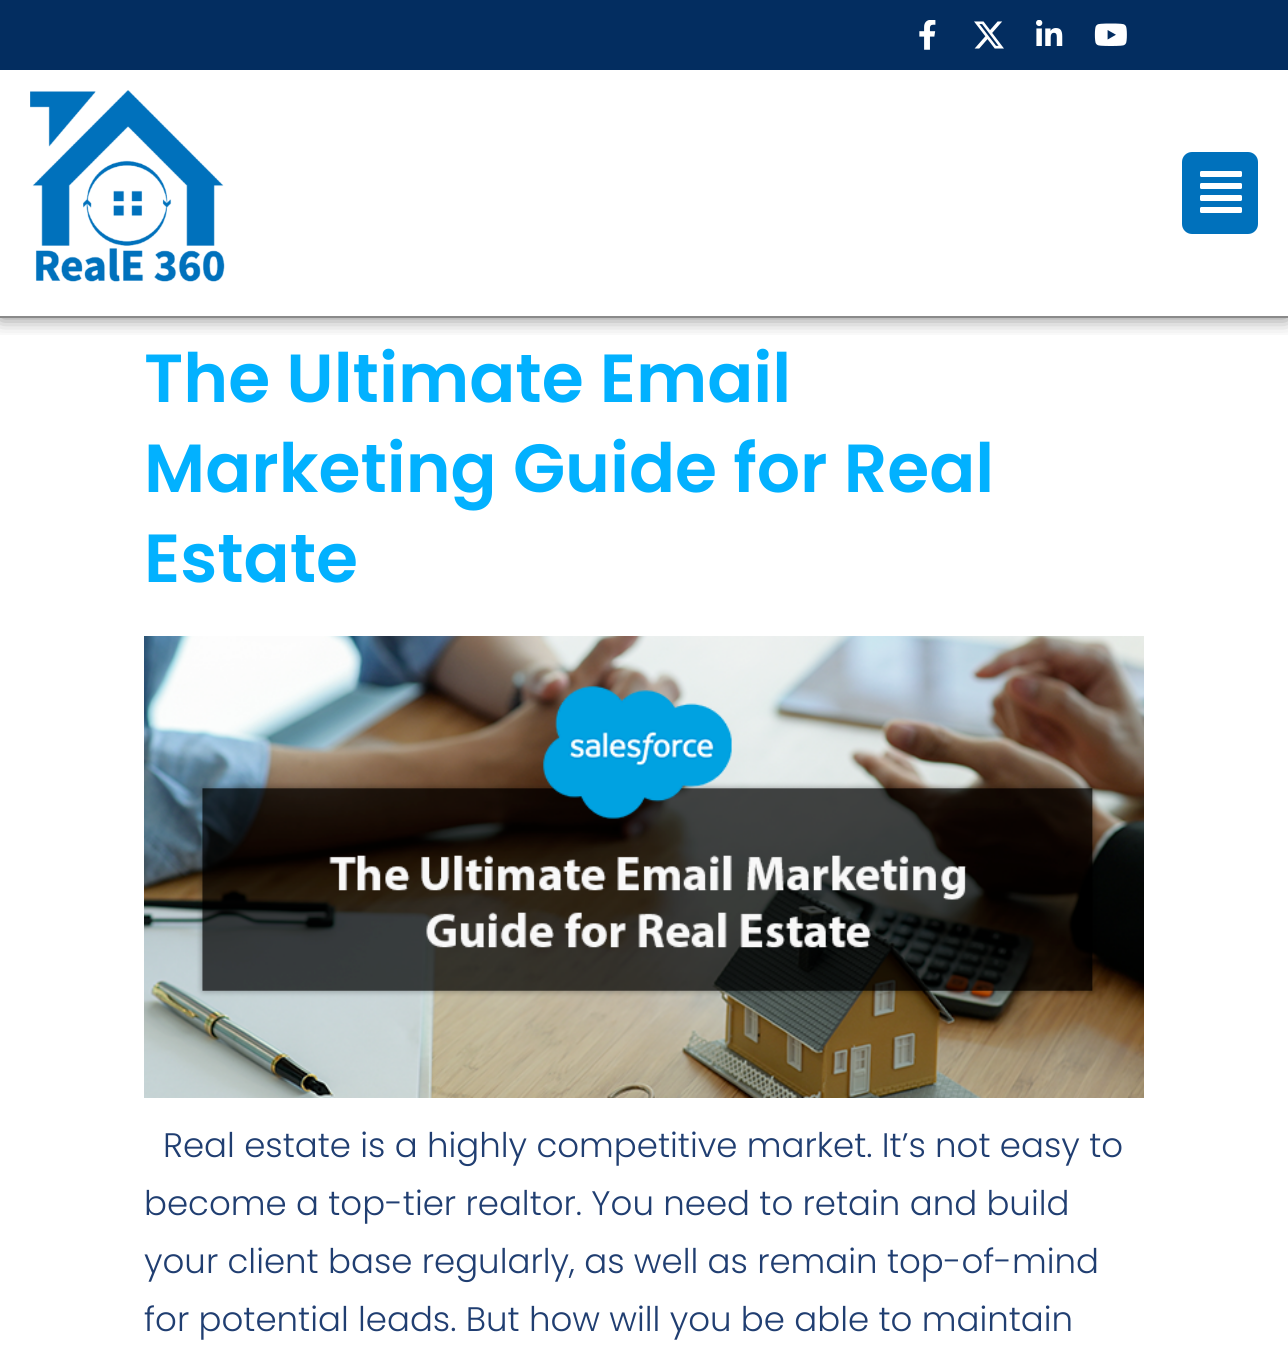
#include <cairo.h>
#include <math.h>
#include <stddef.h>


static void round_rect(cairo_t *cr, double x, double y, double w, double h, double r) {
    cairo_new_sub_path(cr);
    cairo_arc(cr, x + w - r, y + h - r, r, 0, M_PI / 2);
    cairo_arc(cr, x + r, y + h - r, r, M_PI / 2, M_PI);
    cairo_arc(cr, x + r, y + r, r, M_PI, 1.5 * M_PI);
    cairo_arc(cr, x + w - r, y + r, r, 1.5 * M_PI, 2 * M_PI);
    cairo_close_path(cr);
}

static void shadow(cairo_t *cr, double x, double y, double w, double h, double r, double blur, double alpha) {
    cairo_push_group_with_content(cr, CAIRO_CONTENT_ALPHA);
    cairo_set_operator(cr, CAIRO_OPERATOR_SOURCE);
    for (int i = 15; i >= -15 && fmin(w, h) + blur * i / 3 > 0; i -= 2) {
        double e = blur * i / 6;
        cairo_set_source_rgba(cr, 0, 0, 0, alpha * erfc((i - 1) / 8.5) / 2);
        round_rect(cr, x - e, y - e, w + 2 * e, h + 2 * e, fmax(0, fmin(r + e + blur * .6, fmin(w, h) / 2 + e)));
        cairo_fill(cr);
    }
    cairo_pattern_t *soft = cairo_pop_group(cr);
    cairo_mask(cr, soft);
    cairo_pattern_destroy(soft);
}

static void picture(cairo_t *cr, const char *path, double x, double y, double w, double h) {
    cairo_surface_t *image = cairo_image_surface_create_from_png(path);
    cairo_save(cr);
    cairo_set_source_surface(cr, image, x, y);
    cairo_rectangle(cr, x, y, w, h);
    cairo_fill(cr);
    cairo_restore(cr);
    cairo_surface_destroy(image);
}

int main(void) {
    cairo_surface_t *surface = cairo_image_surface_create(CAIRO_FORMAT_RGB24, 1288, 1362);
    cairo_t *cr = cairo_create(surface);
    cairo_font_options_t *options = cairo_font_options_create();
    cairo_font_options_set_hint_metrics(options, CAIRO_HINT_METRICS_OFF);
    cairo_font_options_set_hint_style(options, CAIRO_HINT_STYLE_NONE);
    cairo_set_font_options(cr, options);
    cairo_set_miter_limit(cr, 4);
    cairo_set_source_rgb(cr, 1, 1, 1);
    cairo_paint(cr);
    cairo_save(cr);
    cairo_rectangle(cr, 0, 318, 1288, 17);
    cairo_clip(cr);
    cairo_set_source_rgb(cr, 0, 0, 0);
    shadow(cr, 0, 0, 1288, 318, 0, 10, 0.5);
    cairo_restore(cr);
    cairo_set_source_rgb(cr, 0.012, 0.176, 0.376);
    cairo_rectangle(cr, 0, 0, 1288, 70);
    cairo_fill(cr);
    picture(cr, "img1.png", 919, 20, 17, 30);
    picture(cr, "img2.png", 974, 21, 30, 28);
    picture(cr, "img3.png", 1036, 20, 27, 26);
    picture(cr, "img4.png", 1094, 23, 33, 23);
    cairo_set_source_rgb(cr, 0.541, 0.541, 0.541);
    cairo_rectangle(cr, 0, 316, 1288, 2);
    cairo_fill(cr);
    picture(cr, "img5.png", 30, 90, 195, 192);
    cairo_set_source_rgb(cr, 0, 0.443, 0.737);
    round_rect(cr, 1182, 152, 76, 82, 10);
    cairo_fill(cr);
    picture(cr, "img6.png", 1200, 171, 42, 42);
    cairo_select_font_face(cr, "Poppins SemiBold", CAIRO_FONT_SLANT_NORMAL, CAIRO_FONT_WEIGHT_NORMAL);
    cairo_set_font_size(cr, 68);
    cairo_set_source_rgb(cr, 0.008, 0.694, 1);
    cairo_move_to(cr, 144, 402);
    cairo_show_text(cr, "The Ultimate Email");
    cairo_move_to(cr, 144, 492);
    cairo_show_text(cr, "Marketing Guide for Real");
    cairo_move_to(cr, 144, 582);
    cairo_show_text(cr, "Estate");
    picture(cr, "img7.png", 144, 636, 1000, 462);
    cairo_select_font_face(cr, "Poppins Light", CAIRO_FONT_SLANT_NORMAL, CAIRO_FONT_WEIGHT_NORMAL);
    cairo_set_font_size(cr, 34);
    cairo_set_source_rgb(cr, 0.125, 0.243, 0.443);
    cairo_move_to(cr, 163, 1157);
    cairo_show_text(cr, "Real estate is a highly competitive market. It’s not easy to");
    cairo_move_to(cr, 144, 1215);
    cairo_show_text(cr, "become a top-tier realtor. You need to retain and build");
    cairo_move_to(cr, 144, 1273);
    cairo_show_text(cr, "your client base regularly, as well as remain top-of-mind");
    cairo_move_to(cr, 144, 1331);
    cairo_show_text(cr, "for potential leads. But how will you be able to maintain");
    cairo_surface_write_to_png(surface, "page.png");
    cairo_font_options_destroy(options);
    cairo_destroy(cr);
    cairo_surface_destroy(surface);
    return 0;
}
